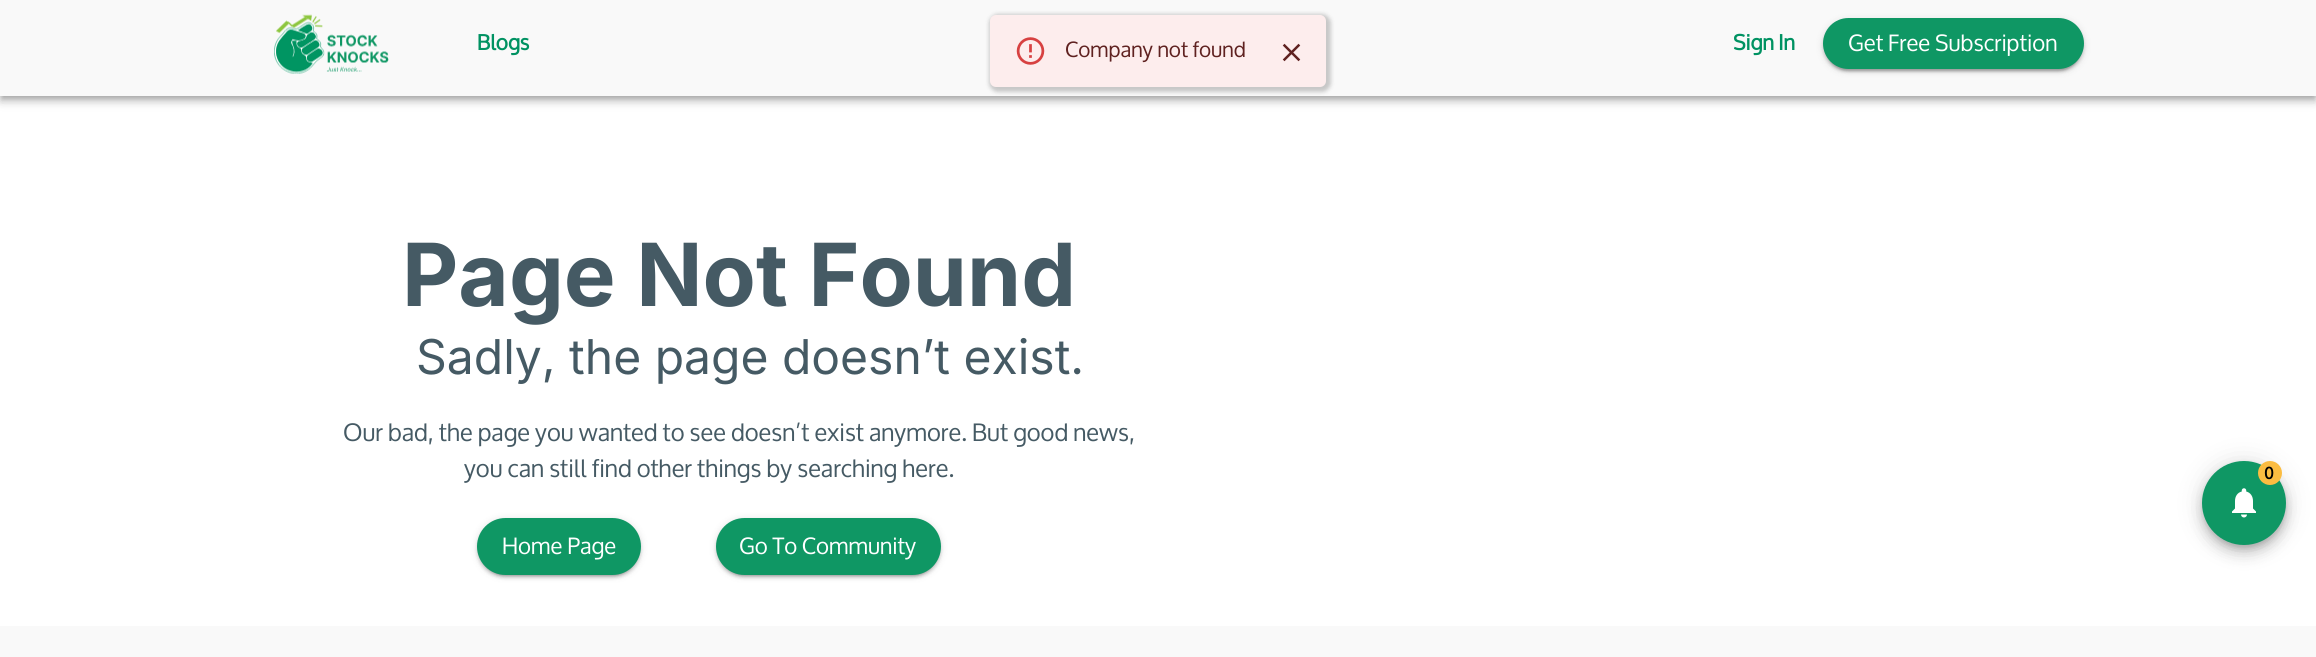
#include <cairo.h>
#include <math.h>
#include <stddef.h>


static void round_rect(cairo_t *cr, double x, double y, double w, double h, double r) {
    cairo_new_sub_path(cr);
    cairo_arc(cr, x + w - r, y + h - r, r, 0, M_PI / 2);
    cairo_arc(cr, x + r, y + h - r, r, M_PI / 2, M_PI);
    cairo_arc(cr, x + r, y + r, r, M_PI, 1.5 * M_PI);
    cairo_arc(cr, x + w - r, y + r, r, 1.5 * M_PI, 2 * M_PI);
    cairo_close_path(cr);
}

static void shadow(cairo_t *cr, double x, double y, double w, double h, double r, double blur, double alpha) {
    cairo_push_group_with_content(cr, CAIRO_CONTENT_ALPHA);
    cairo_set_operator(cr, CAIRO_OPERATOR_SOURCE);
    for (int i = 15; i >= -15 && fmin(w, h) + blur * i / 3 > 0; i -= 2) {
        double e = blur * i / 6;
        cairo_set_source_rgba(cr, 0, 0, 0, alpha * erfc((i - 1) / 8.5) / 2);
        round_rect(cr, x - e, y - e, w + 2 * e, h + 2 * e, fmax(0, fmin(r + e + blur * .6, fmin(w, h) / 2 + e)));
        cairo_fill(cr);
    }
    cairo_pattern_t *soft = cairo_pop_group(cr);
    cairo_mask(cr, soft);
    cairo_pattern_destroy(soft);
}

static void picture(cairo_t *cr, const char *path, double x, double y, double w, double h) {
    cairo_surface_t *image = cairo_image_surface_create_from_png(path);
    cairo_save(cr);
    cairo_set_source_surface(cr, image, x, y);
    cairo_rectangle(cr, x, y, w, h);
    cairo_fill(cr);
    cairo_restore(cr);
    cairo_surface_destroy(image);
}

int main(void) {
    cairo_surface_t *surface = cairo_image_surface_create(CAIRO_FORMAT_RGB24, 2316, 657);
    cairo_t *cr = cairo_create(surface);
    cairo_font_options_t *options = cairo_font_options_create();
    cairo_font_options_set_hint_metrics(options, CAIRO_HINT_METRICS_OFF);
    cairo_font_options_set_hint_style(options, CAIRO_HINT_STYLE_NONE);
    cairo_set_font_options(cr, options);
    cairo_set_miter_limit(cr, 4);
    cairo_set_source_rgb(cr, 1, 1, 1);
    cairo_paint(cr);
    cairo_set_source_rgb(cr, 0, 0, 0);
    shadow(cr, 0, 2, 2316, 96, 0, 7.5, 0.12);
    shadow(cr, 0, 6, 2316, 96, 0, 4, 0.14);
    shadow(cr, 2, 5, 2313, 93, 0, 3, 0.2);
    cairo_set_source_rgb(cr, 0.976, 0.976, 0.976);
    cairo_rectangle(cr, 0, 0, 2316, 96);
    cairo_fill(cr);
    picture(cr, "img1.png", 274, 14, 115, 60);
    cairo_select_font_face(cr, "Oxygen", CAIRO_FONT_SLANT_NORMAL, CAIRO_FONT_WEIGHT_BOLD);
    cairo_set_font_size(cr, 21);
    cairo_set_source_rgb(cr, 0, 0.573, 0.384);
    cairo_move_to(cr, 477, 50);
    cairo_show_text(cr, "Blogs");
    cairo_move_to(cr, 1733, 50);
    cairo_show_text(cr, "Sign In");
    cairo_set_source_rgb(cr, 0, 0, 0);
    shadow(cr, 1823, 20, 261, 51, 25.5, 4, 0.12);
    shadow(cr, 1823, 21, 261, 51, 25.5, 1.5, 0.14);
    shadow(cr, 1826, 26, 255, 45, 22.5, 1, 0.2);
    cairo_set_source_rgb(cr, 0.059, 0.592, 0.392);
    round_rect(cr, 1823, 18, 261, 51, 25.5);
    cairo_fill(cr);
    cairo_select_font_face(cr, "Oxygen", CAIRO_FONT_SLANT_NORMAL, CAIRO_FONT_WEIGHT_NORMAL);
    cairo_set_font_size(cr, 22.5);
    cairo_set_source_rgb(cr, 1, 1, 1);
    cairo_move_to(cr, 1848, 51);
    cairo_show_text(cr, "Get Free Subscription");
    cairo_set_source_rgb(cr, 0, 0, 0);
    shadow(cr, 989, 14, 342, 78, 9, 2, 0.2);
    cairo_set_source_rgb(cr, 0.992, 0.929, 0.929);
    round_rect(cr, 990, 15, 336, 72, 6);
    cairo_fill(cr);
    picture(cr, "img2.png", 1016, 37, 29, 28);
    cairo_set_font_size(cr, 21);
    cairo_set_source_rgb(cr, 0.373, 0.129, 0.125);
    cairo_move_to(cr, 1065, 57);
    cairo_show_text(cr, "Company not found");
    picture(cr, "img3.png", 1282, 43, 19, 19);
    cairo_select_font_face(cr, "Inter", CAIRO_FONT_SLANT_NORMAL, CAIRO_FONT_WEIGHT_BOLD);
    cairo_set_font_size(cr, 87);
    cairo_set_source_rgb(cr, 0.271, 0.353, 0.392);
    cairo_move_to(cr, 402, 306);
    cairo_show_text(cr, "Page Not Found");
    cairo_select_font_face(cr, "Inter", CAIRO_FONT_SLANT_NORMAL, CAIRO_FONT_WEIGHT_NORMAL);
    cairo_set_font_size(cr, 48);
    cairo_move_to(cr, 416, 374);
    cairo_show_text(cr, "Sadly, the page doesn’t exist.");
    cairo_select_font_face(cr, "Oxygen", CAIRO_FONT_SLANT_NORMAL, CAIRO_FONT_WEIGHT_NORMAL);
    cairo_set_font_size(cr, 24);
    cairo_move_to(cr, 343, 441);
    cairo_show_text(cr, "Our bad, the page you wanted to see doesn’t exist anymore. But good news,");
    cairo_move_to(cr, 464, 477);
    cairo_show_text(cr, "you can still find other things by searching here.");
    cairo_set_source_rgb(cr, 0, 0, 0);
    shadow(cr, 477, 519, 164, 57, 28.5, 4, 0.12);
    shadow(cr, 477, 521, 164, 57, 28.5, 1.5, 0.14);
    shadow(cr, 480, 525, 158, 51, 25.5, 1, 0.2);
    cairo_set_source_rgb(cr, 0.059, 0.592, 0.392);
    round_rect(cr, 477, 518, 164, 57, 28.5);
    cairo_fill(cr);
    cairo_set_font_size(cr, 22.5);
    cairo_set_source_rgb(cr, 1, 1, 1);
    cairo_move_to(cr, 502, 554);
    cairo_show_text(cr, "Home Page");
    cairo_set_source_rgb(cr, 0, 0, 0);
    shadow(cr, 716, 519, 225, 57, 28.5, 4, 0.12);
    shadow(cr, 716, 521, 225, 57, 28.5, 1.5, 0.14);
    shadow(cr, 719, 525, 219, 51, 25.5, 1, 0.2);
    cairo_set_source_rgb(cr, 0.059, 0.592, 0.392);
    round_rect(cr, 716, 518, 225, 57, 28.5);
    cairo_fill(cr);
    cairo_set_source_rgb(cr, 1, 1, 1);
    cairo_move_to(cr, 739, 554);
    cairo_show_text(cr, "Go To Community");
    cairo_set_source_rgb(cr, 0, 0, 0);
    shadow(cr, 2202, 462, 84, 84, 42, 13.5, 0.12);
    shadow(cr, 2202, 470, 84, 84, 42, 7.5, 0.14);
    shadow(cr, 2204, 467, 81, 81, 40.5, 4, 0.2);
    cairo_set_source_rgb(cr, 0.059, 0.592, 0.392);
    cairo_arc(cr, 2244, 503, 42, 0, 2 * M_PI);
    cairo_fill(cr);
    cairo_set_source_rgb(cr, 0.984, 0.737, 0.255);
    cairo_arc(cr, 2270, 473, 12, 0, 2 * M_PI);
    cairo_fill(cr);
    cairo_select_font_face(cr, "Oxygen", CAIRO_FONT_SLANT_NORMAL, CAIRO_FONT_WEIGHT_BOLD);
    cairo_set_font_size(cr, 16);
    cairo_set_source_rgb(cr, 0, 0, 0);
    cairo_move_to(cr, 2264, 479);
    cairo_show_text(cr, "0");
    picture(cr, "img4.png", 2232, 488, 24, 30);
    cairo_set_source_rgb(cr, 0.976, 0.976, 0.976);
    cairo_rectangle(cr, 0, 626, 2316, 31);
    cairo_fill(cr);
    cairo_surface_write_to_png(surface, "page.png");
    cairo_font_options_destroy(options);
    cairo_destroy(cr);
    cairo_surface_destroy(surface);
    return 0;
}
